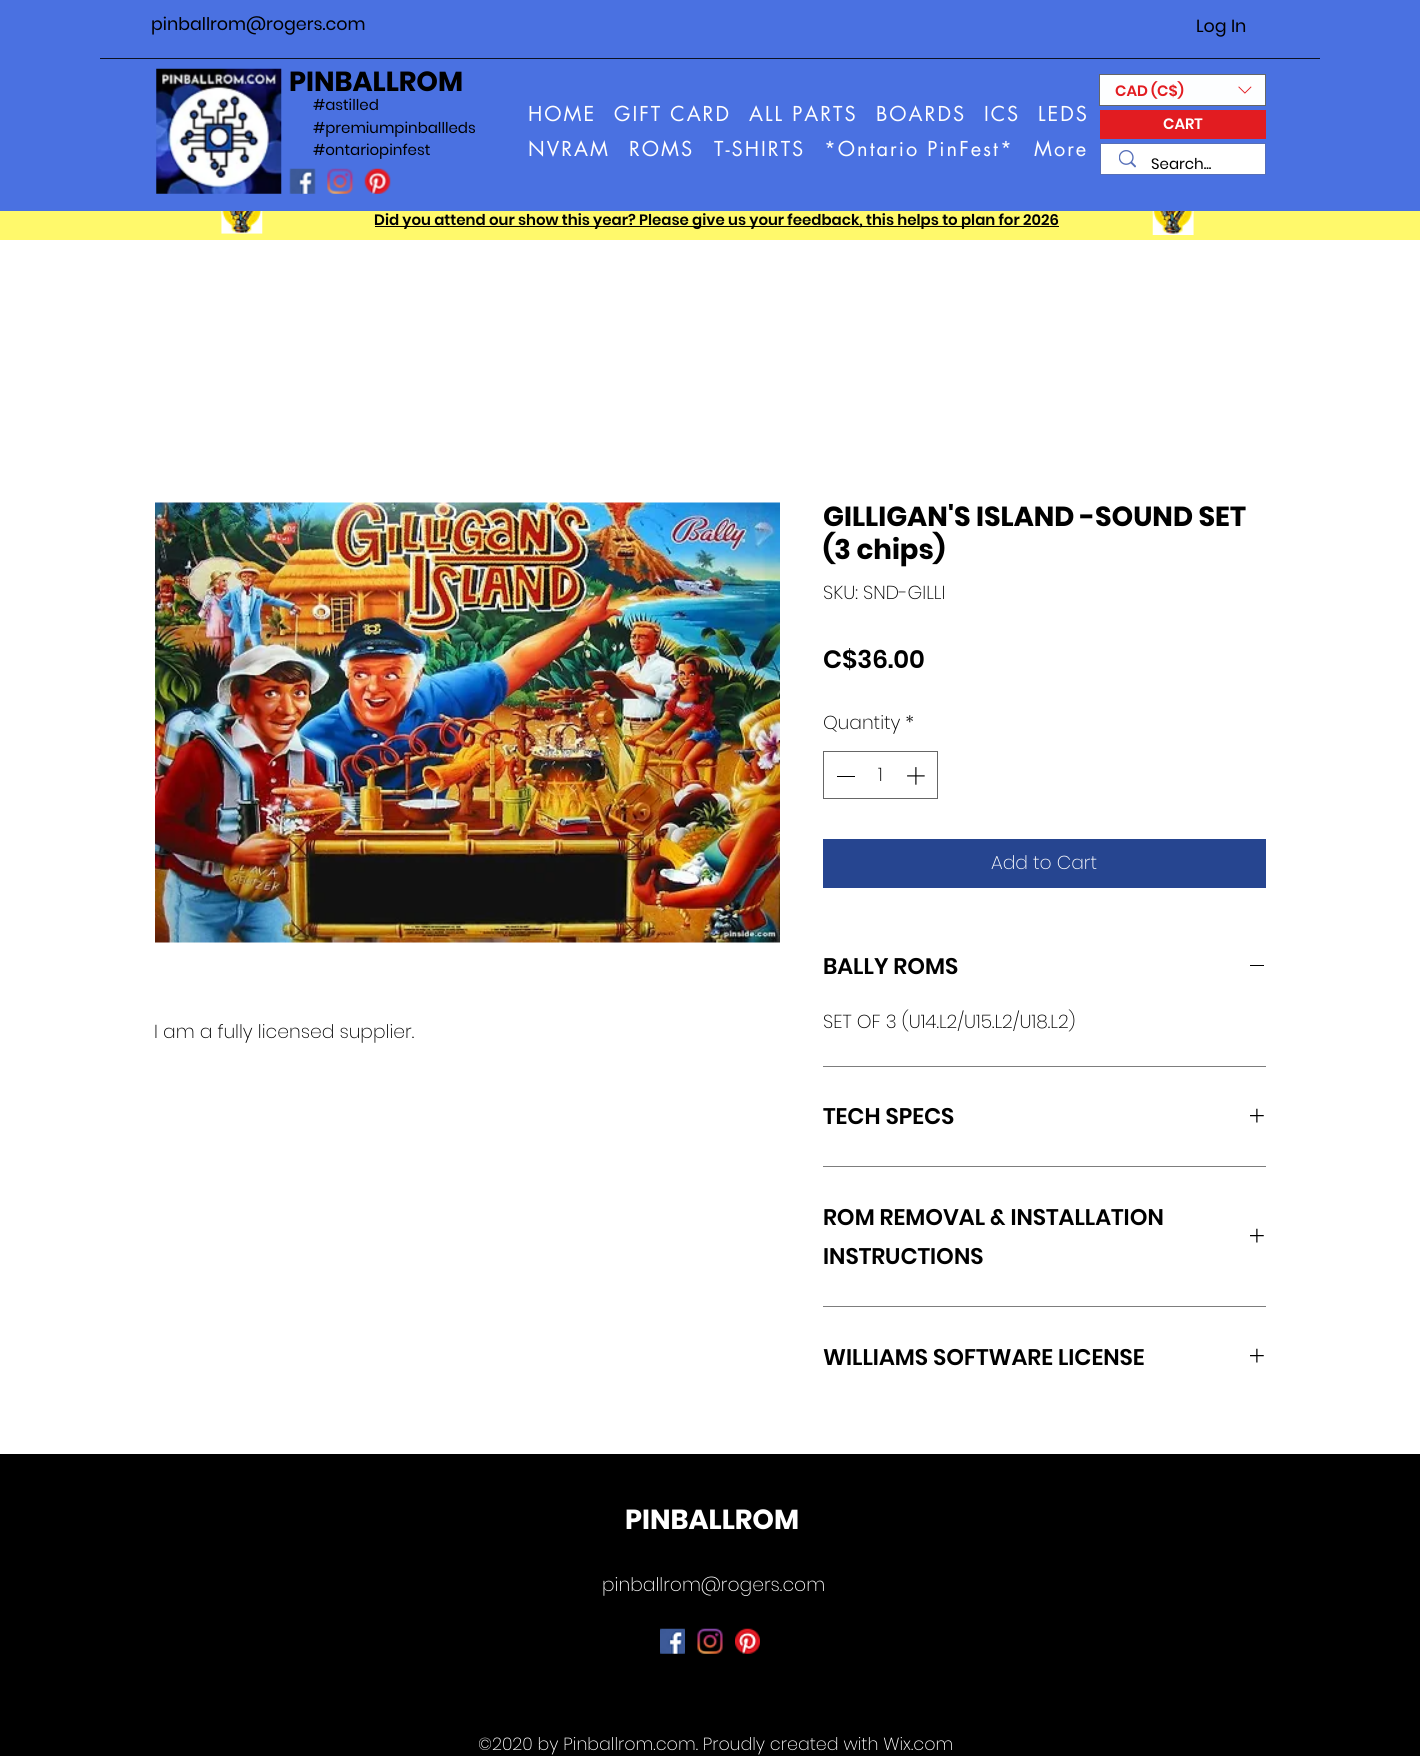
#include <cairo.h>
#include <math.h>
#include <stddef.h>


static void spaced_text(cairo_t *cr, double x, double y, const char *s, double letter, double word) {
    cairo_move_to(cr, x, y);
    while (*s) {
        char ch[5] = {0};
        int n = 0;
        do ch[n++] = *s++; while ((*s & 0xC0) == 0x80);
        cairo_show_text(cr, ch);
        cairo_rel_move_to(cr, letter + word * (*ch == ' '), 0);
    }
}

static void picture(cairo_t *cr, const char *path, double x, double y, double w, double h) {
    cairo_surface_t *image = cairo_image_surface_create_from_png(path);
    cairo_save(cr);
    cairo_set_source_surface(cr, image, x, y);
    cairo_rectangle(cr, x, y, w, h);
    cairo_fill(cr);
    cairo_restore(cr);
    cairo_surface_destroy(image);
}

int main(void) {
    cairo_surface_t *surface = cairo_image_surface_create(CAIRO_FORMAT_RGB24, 1420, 1756);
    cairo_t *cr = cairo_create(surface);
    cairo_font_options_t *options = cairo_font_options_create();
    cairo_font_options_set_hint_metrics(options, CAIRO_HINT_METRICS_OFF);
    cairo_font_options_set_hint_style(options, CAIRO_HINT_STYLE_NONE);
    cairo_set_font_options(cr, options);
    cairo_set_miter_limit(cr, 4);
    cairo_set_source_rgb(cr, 1, 1, 1);
    cairo_paint(cr);
    cairo_set_source_rgb(cr, 0.29, 0.443, 0.882);
    cairo_rectangle(cr, 0, 0, 1420, 211);
    cairo_fill(cr);
    cairo_select_font_face(cr, "Poppins", CAIRO_FONT_SLANT_NORMAL, CAIRO_FONT_WEIGHT_NORMAL);
    cairo_set_font_size(cr, 17.5);
    cairo_set_source_rgb(cr, 0, 0, 0);
    cairo_move_to(cr, 151, 30);
    cairo_show_text(cr, "pinballrom@rogers.com");
    cairo_move_to(cr, 1196, 32);
    cairo_show_text(cr, "Log In");
    cairo_set_source_rgb(cr, 0.043, 0.067, 0.133);
    cairo_rectangle(cr, 100, 58, 1220, 1);
    cairo_fill(cr);
    picture(cr, "img1.png", 156, 68, 126, 126);
    cairo_select_font_face(cr, "Poppins", CAIRO_FONT_SLANT_NORMAL, CAIRO_FONT_WEIGHT_BOLD);
    cairo_set_font_size(cr, 27.5);
    cairo_set_source_rgb(cr, 0, 0, 0);
    cairo_move_to(cr, 289, 91);
    cairo_show_text(cr, "PINBALLROM");
    picture(cr, "img2.png", 289, 168, 27, 26);
    picture(cr, "img3.png", 327, 168, 27, 26);
    picture(cr, "img4.png", 364, 168, 27, 26);
    cairo_set_source_rgb(cr, 0.992, 0.996, 1);
    cairo_rectangle(cr, 1099.5, 74.5, 166, 31);
    cairo_fill_preserve(cr);
    cairo_set_source_rgb(cr, 0.396, 0.4, 0.4);
    cairo_set_line_width(cr, 1);
    cairo_stroke(cr);
    cairo_select_font_face(cr, "Poppins SemiBold", CAIRO_FONT_SLANT_NORMAL, CAIRO_FONT_WEIGHT_NORMAL);
    cairo_set_font_size(cr, 15);
    cairo_set_source_rgb(cr, 0.886, 0.11, 0.129);
    cairo_move_to(cr, 1115, 96);
    cairo_show_text(cr, "CAD (C$)");
    picture(cr, "img5.png", 1238, 86, 14, 8);
    cairo_select_font_face(cr, "futura", CAIRO_FONT_SLANT_NORMAL, CAIRO_FONT_WEIGHT_NORMAL);
    cairo_set_font_size(cr, 20);
    cairo_set_source_rgb(cr, 1, 1, 1);
    spaced_text(cr, 528, 121, "HOME", 2, 0);
    spaced_text(cr, 614, 121, "GIFT CARD", 2, 0);
    spaced_text(cr, 749, 121, "ALL PARTS", 2, 0);
    spaced_text(cr, 876, 121, "BOARDS", 2, 0);
    spaced_text(cr, 984, 121, "ICS", 2, 0);
    spaced_text(cr, 1038, 121, "LEDS", 2, 0);
    spaced_text(cr, 528, 156, "NVRAM", 2, 0);
    spaced_text(cr, 629, 156, "ROMS", 2, 0);
    spaced_text(cr, 714, 156, "T-SHIRTS", 2, 0);
    spaced_text(cr, 824, 156, "*Ontario PinFest*", 2, 0);
    spaced_text(cr, 1034, 156, "More", 2, 0);
    cairo_set_source_rgb(cr, 0.886, 0.11, 0.129);
    cairo_rectangle(cr, 1100, 110, 166, 29);
    cairo_fill(cr);
    cairo_select_font_face(cr, "Poppins SemiBold", CAIRO_FONT_SLANT_NORMAL, CAIRO_FONT_WEIGHT_NORMAL);
    cairo_set_font_size(cr, 15);
    cairo_set_source_rgb(cr, 1, 1, 1);
    cairo_move_to(cr, 1163, 129);
    cairo_show_text(cr, "CART");
    cairo_rectangle(cr, 1100.5, 143.5, 165, 31);
    cairo_set_source_rgb(cr, 0.337, 0.435, 0.722);
    cairo_stroke(cr);
    cairo_set_source_rgb(cr, 1, 1, 1);
    cairo_rectangle(cr, 1101, 144, 164, 30);
    cairo_fill(cr);
    picture(cr, "img6.png", 1119, 150, 17, 18);
    cairo_select_font_face(cr, "Poppins", CAIRO_FONT_SLANT_NORMAL, CAIRO_FONT_WEIGHT_NORMAL);
    cairo_set_source_rgb(cr, 0, 0, 0);
    cairo_move_to(cr, 1151, 169);
    cairo_show_text(cr, "Search...");
    cairo_move_to(cr, 313, 110);
    cairo_show_text(cr, "#astilled");
    cairo_move_to(cr, 313, 133);
    cairo_show_text(cr, "#premiumpinballleds");
    cairo_move_to(cr, 313, 155);
    cairo_show_text(cr, "#ontariopinfest");
    cairo_set_source_rgb(cr, 1, 0.973, 0.42);
    cairo_rectangle(cr, 0, 211, 1420, 29);
    cairo_fill(cr);
    picture(cr, "img7.png", 221, 211, 42, 23);
    cairo_set_source_rgb(cr, 0, 0, 0);
    cairo_rectangle(cr, 375, 226, 684, 1);
    cairo_fill(cr);
    cairo_select_font_face(cr, "Poppins SemiBold", CAIRO_FONT_SLANT_NORMAL, CAIRO_FONT_WEIGHT_NORMAL);
    cairo_move_to(cr, 374, 225);
    cairo_show_text(cr, "Did you attend our show this year? Please give us your feedback, this helps to plan for 2026");
    picture(cr, "img8.png", 1152, 211, 42, 24);
    picture(cr, "img9.png", 155, 502, 625, 441);
    cairo_select_font_face(cr, "Poppins ExtraLight", CAIRO_FONT_SLANT_NORMAL, CAIRO_FONT_WEIGHT_NORMAL);
    cairo_set_font_size(cr, 18.75);
    cairo_move_to(cr, 154, 1038);
    cairo_show_text(cr, "I am a fully licensed supplier.");
    cairo_select_font_face(cr, "Poppins", CAIRO_FONT_SLANT_NORMAL, CAIRO_FONT_WEIGHT_BOLD);
    cairo_set_font_size(cr, 27.5);
    cairo_move_to(cr, 823, 526);
    cairo_show_text(cr, "GILLIGAN'S ISLAND -SOUND SET");
    cairo_move_to(cr, 823, 559);
    cairo_show_text(cr, "(3 chips)");
    cairo_select_font_face(cr, "Poppins ExtraLight", CAIRO_FONT_SLANT_NORMAL, CAIRO_FONT_WEIGHT_NORMAL);
    cairo_set_font_size(cr, 18.75);
    cairo_move_to(cr, 823, 599);
    cairo_show_text(cr, "SKU: SND-GILLI");
    cairo_select_font_face(cr, "Poppins SemiBold", CAIRO_FONT_SLANT_NORMAL, CAIRO_FONT_WEIGHT_NORMAL);
    cairo_set_font_size(cr, 25);
    cairo_move_to(cr, 823, 668);
    cairo_show_text(cr, "C$36.00");
    cairo_select_font_face(cr, "Poppins ExtraLight", CAIRO_FONT_SLANT_NORMAL, CAIRO_FONT_WEIGHT_NORMAL);
    cairo_set_font_size(cr, 18.75);
    cairo_move_to(cr, 823, 729);
    cairo_show_text(cr, "Quantity *");
    cairo_rectangle(cr, 823.5, 751.5, 114, 47);
    cairo_set_source_rgb(cr, 0.4, 0.4, 0.4);
    cairo_stroke(cr);
    cairo_set_source_rgb(cr, 0, 0, 0);
    cairo_rectangle(cr, 837, 776, 18, 1);
    cairo_fill(cr);
    cairo_move_to(cr, 878, 781);
    cairo_show_text(cr, "1");
    picture(cr, "img10.png", 907, 767, 18, 18);
    cairo_set_source_rgb(cr, 0.149, 0.271, 0.565);
    cairo_rectangle(cr, 823, 839, 443, 49);
    cairo_fill(cr);
    cairo_set_source_rgb(cr, 1, 1, 1);
    cairo_move_to(cr, 991, 869);
    cairo_show_text(cr, "Add to Cart");
    cairo_set_source_rgb(cr, 0.49, 0.49, 0.49);
    cairo_rectangle(cr, 823, 1066, 443, 1);
    cairo_fill(cr);
    cairo_select_font_face(cr, "Poppins SemiBold", CAIRO_FONT_SLANT_NORMAL, CAIRO_FONT_WEIGHT_NORMAL);
    cairo_set_font_size(cr, 22.5);
    cairo_set_source_rgb(cr, 0, 0, 0);
    cairo_move_to(cr, 823, 974);
    cairo_show_text(cr, "BALLY ROMS");
    cairo_rectangle(cr, 1250, 965, 14, 1);
    cairo_fill(cr);
    cairo_select_font_face(cr, "Poppins ExtraLight", CAIRO_FONT_SLANT_NORMAL, CAIRO_FONT_WEIGHT_NORMAL);
    cairo_set_font_size(cr, 18.75);
    cairo_move_to(cr, 823, 1028);
    cairo_show_text(cr, "SET OF 3 (U14.L2/U15.L2/U18.L2)");
    cairo_set_source_rgb(cr, 0.49, 0.49, 0.49);
    cairo_rectangle(cr, 823, 1166, 443, 1);
    cairo_fill(cr);
    cairo_select_font_face(cr, "Poppins SemiBold", CAIRO_FONT_SLANT_NORMAL, CAIRO_FONT_WEIGHT_NORMAL);
    cairo_set_font_size(cr, 22.5);
    cairo_set_source_rgb(cr, 0, 0, 0);
    cairo_move_to(cr, 823, 1124);
    cairo_show_text(cr, "TECH SPECS");
    picture(cr, "img11.png", 1250, 1108, 14, 15);
    cairo_set_source_rgb(cr, 0.49, 0.49, 0.49);
    cairo_rectangle(cr, 823, 1306, 443, 1);
    cairo_fill(cr);
    cairo_set_source_rgb(cr, 0, 0, 0);
    cairo_move_to(cr, 823, 1225);
    cairo_show_text(cr, "ROM REMOVAL & INSTALLATION");
    cairo_move_to(cr, 823, 1264);
    cairo_show_text(cr, "INSTRUCTIONS");
    picture(cr, "img11.png", 1250, 1228, 14, 15);
    cairo_move_to(cr, 823, 1365);
    cairo_show_text(cr, "WILLIAMS SOFTWARE LICENSE");
    picture(cr, "img11.png", 1250, 1348, 14, 15);
    cairo_rectangle(cr, 0, 1454, 1420, 302);
    cairo_fill(cr);
    cairo_select_font_face(cr, "Poppins", CAIRO_FONT_SLANT_NORMAL, CAIRO_FONT_WEIGHT_BOLD);
    cairo_set_font_size(cr, 27.5);
    cairo_set_source_rgb(cr, 1, 1, 1);
    cairo_move_to(cr, 625, 1529);
    cairo_show_text(cr, "PINBALLROM");
    cairo_select_font_face(cr, "Poppins ExtraLight", CAIRO_FONT_SLANT_NORMAL, CAIRO_FONT_WEIGHT_NORMAL);
    cairo_set_font_size(cr, 18.75);
    cairo_move_to(cr, 602, 1591);
    cairo_show_text(cr, "pinballrom@rogers.com");
    picture(cr, "img12.png", 660, 1628, 25, 26);
    picture(cr, "img13.png", 697, 1628, 26, 26);
    picture(cr, "img14.png", 735, 1628, 25, 26);
    cairo_set_font_size(cr, 17.5);
    cairo_move_to(cr, 478, 1750);
    cairo_show_text(cr, "©2020 by Pinballrom.com. Proudly created with Wix.com");
    cairo_surface_write_to_png(surface, "page.png");
    cairo_font_options_destroy(options);
    cairo_destroy(cr);
    cairo_surface_destroy(surface);
    return 0;
}
